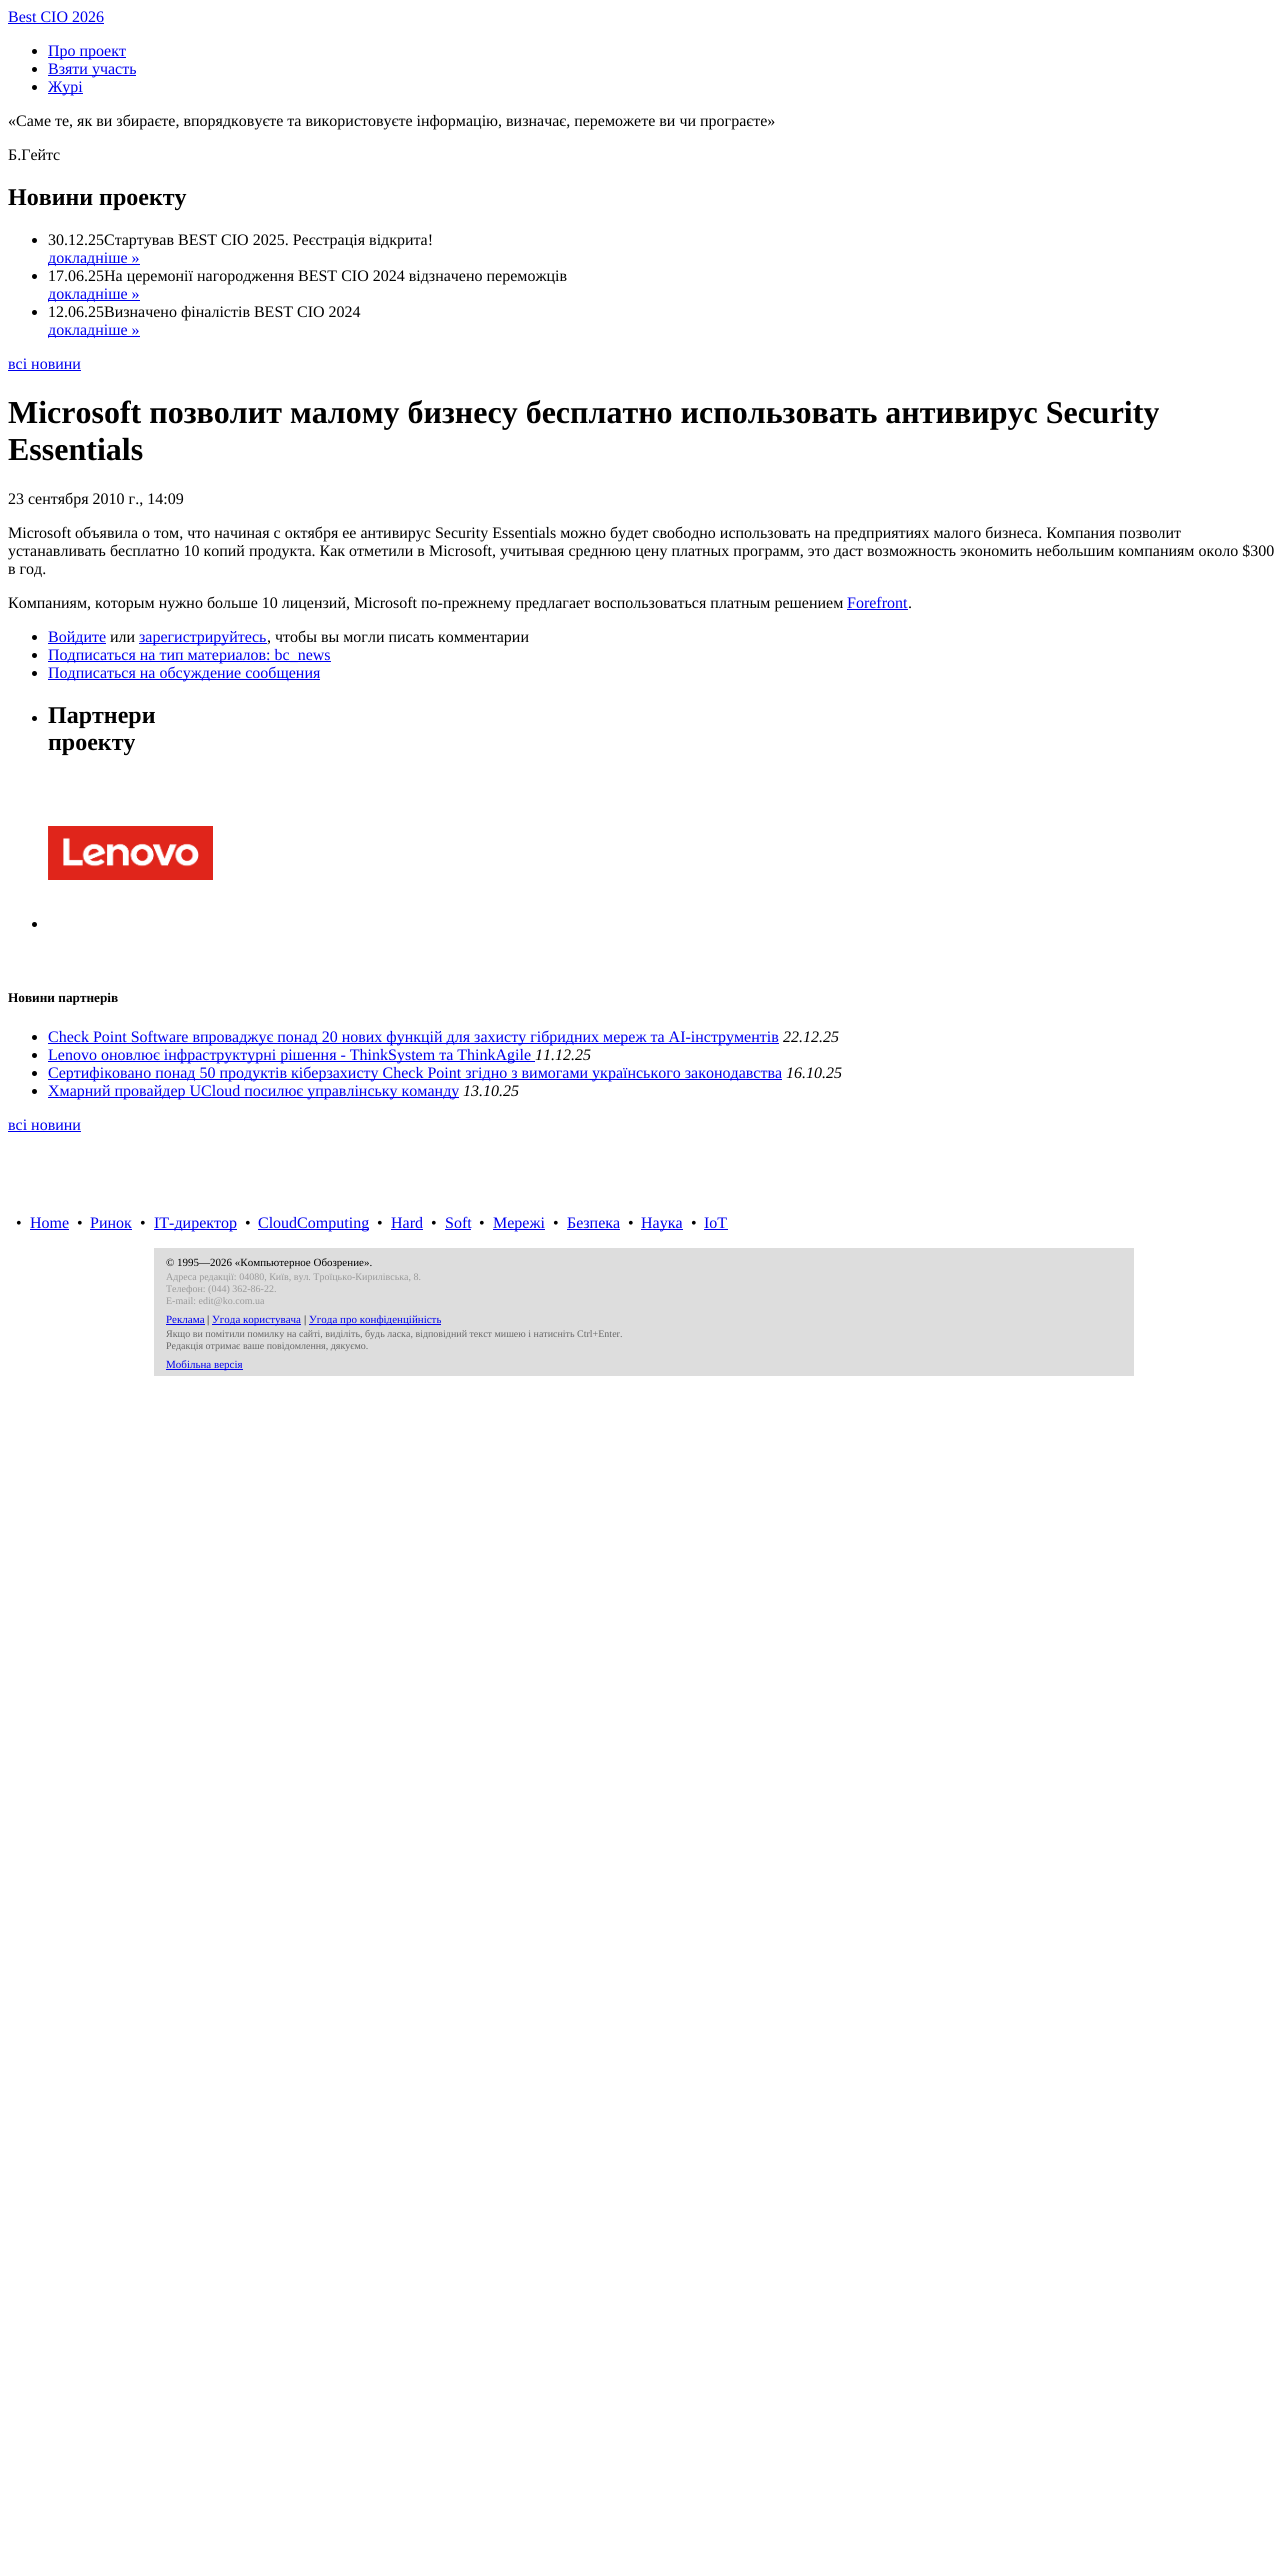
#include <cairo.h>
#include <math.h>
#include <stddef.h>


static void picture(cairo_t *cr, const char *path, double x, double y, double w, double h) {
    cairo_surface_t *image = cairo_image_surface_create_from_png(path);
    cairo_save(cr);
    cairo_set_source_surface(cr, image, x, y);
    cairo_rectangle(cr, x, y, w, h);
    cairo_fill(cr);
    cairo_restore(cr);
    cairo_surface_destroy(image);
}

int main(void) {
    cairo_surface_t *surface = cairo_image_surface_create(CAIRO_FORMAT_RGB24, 1288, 2576);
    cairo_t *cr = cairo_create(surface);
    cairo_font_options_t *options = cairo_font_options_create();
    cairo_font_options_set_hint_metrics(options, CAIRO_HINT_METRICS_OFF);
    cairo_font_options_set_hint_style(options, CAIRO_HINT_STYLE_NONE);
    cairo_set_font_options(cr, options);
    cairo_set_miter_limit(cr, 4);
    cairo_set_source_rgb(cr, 1, 1, 1);
    cairo_paint(cr);
    cairo_select_font_face(cr, "Liberation Serif", CAIRO_FONT_SLANT_NORMAL, CAIRO_FONT_WEIGHT_NORMAL);
    cairo_set_font_size(cr, 16);
    cairo_set_source_rgb(cr, 0, 0, 0.933);
    cairo_move_to(cr, 8, 22);
    cairo_show_text(cr, "Best CIO 2026");
    cairo_rectangle(cr, 8, 23, 96, 1);
    cairo_fill(cr);
    cairo_set_source_rgb(cr, 0, 0, 0);
    cairo_arc(cr, 34.5, 51.5, 2.5, 0, 2 * M_PI);
    cairo_fill(cr);
    cairo_set_source_rgb(cr, 0, 0, 0.933);
    cairo_rectangle(cr, 48, 57, 78, 1);
    cairo_fill(cr);
    cairo_move_to(cr, 48, 56);
    cairo_show_text(cr, "Про проект");
    cairo_set_source_rgb(cr, 0, 0, 0);
    cairo_new_path(cr);
    cairo_arc(cr, 34.5, 69.5, 2.5, 0, 2 * M_PI);
    cairo_fill(cr);
    cairo_set_source_rgb(cr, 0, 0, 0.933);
    cairo_rectangle(cr, 48, 75, 88, 1);
    cairo_fill(cr);
    cairo_move_to(cr, 48, 74);
    cairo_show_text(cr, "Взяти участь");
    cairo_set_source_rgb(cr, 0, 0, 0);
    cairo_new_path(cr);
    cairo_arc(cr, 34.5, 87.5, 2.5, 0, 2 * M_PI);
    cairo_fill(cr);
    cairo_set_source_rgb(cr, 0, 0, 0.933);
    cairo_rectangle(cr, 48, 93, 35, 1);
    cairo_fill(cr);
    cairo_move_to(cr, 48, 92);
    cairo_show_text(cr, "Журі");
    cairo_set_source_rgb(cr, 0, 0, 0);
    cairo_move_to(cr, 8, 126);
    cairo_show_text(cr, "«Саме те, як ви збираєте, впорядковуєте та використовуєте інформацію, визначає, переможете ви чи програєте»");
    cairo_move_to(cr, 8, 160);
    cairo_show_text(cr, "Б.Гейтс");
    cairo_select_font_face(cr, "Liberation Serif", CAIRO_FONT_SLANT_NORMAL, CAIRO_FONT_WEIGHT_BOLD);
    cairo_set_font_size(cr, 24);
    cairo_move_to(cr, 8, 205);
    cairo_show_text(cr, "Новини проекту");
    cairo_new_path(cr);
    cairo_arc(cr, 34.5, 240.5, 2.5, 0, 2 * M_PI);
    cairo_fill(cr);
    cairo_select_font_face(cr, "Liberation Serif", CAIRO_FONT_SLANT_NORMAL, CAIRO_FONT_WEIGHT_NORMAL);
    cairo_set_font_size(cr, 16);
    cairo_move_to(cr, 48, 245);
    cairo_show_text(cr, "30.12.25Стартував BEST CIO 2025. Реєстрація відкрита!");
    cairo_set_source_rgb(cr, 0, 0, 0.933);
    cairo_rectangle(cr, 48, 264, 92, 1);
    cairo_fill(cr);
    cairo_move_to(cr, 48, 263);
    cairo_show_text(cr, "докладніше »");
    cairo_set_source_rgb(cr, 0, 0, 0);
    cairo_new_path(cr);
    cairo_arc(cr, 34.5, 276.5, 2.5, 0, 2 * M_PI);
    cairo_fill(cr);
    cairo_move_to(cr, 48, 281);
    cairo_show_text(cr, "17.06.25На церемонії нагородження BEST CIO 2024 відзначено переможців");
    cairo_set_source_rgb(cr, 0, 0, 0.933);
    cairo_rectangle(cr, 48, 300, 92, 1);
    cairo_fill(cr);
    cairo_move_to(cr, 48, 299);
    cairo_show_text(cr, "докладніше »");
    cairo_set_source_rgb(cr, 0, 0, 0);
    cairo_new_path(cr);
    cairo_arc(cr, 34.5, 312.5, 2.5, 0, 2 * M_PI);
    cairo_fill(cr);
    cairo_move_to(cr, 48, 317);
    cairo_show_text(cr, "12.06.25Визначено фіналістів BEST CIO 2024");
    cairo_set_source_rgb(cr, 0, 0, 0.933);
    cairo_rectangle(cr, 48, 336, 92, 1);
    cairo_fill(cr);
    cairo_move_to(cr, 48, 335);
    cairo_show_text(cr, "докладніше »");
    cairo_move_to(cr, 8, 369);
    cairo_show_text(cr, "всі новини");
    cairo_rectangle(cr, 8, 370, 73, 1);
    cairo_fill(cr);
    cairo_select_font_face(cr, "Liberation Serif", CAIRO_FONT_SLANT_NORMAL, CAIRO_FONT_WEIGHT_BOLD);
    cairo_set_font_size(cr, 32);
    cairo_set_source_rgb(cr, 0, 0, 0);
    cairo_move_to(cr, 8, 423);
    cairo_show_text(cr, "Microsoft позволит малому бизнесу бесплатно использовать антивирус Security");
    cairo_move_to(cr, 8, 460);
    cairo_show_text(cr, "Essentials");
    cairo_select_font_face(cr, "Liberation Serif", CAIRO_FONT_SLANT_NORMAL, CAIRO_FONT_WEIGHT_NORMAL);
    cairo_set_font_size(cr, 16);
    cairo_move_to(cr, 8, 504);
    cairo_show_text(cr, "23 сентября 2010 г., 14:09");
    cairo_move_to(cr, 8, 538);
    cairo_show_text(cr, "Microsoft объявила о том, что начиная с октября ее антивирус Security Essentials можно будет свободно использовать на предприятиях малого бизнеса. Компания позволит");
    cairo_move_to(cr, 8, 556);
    cairo_show_text(cr, "устанавливать бесплатно 10 копий продукта. Как отметили в Microsoft, учитывая среднюю цену платных программ, это даст возможность экономить небольшим компаниям около $300");
    cairo_move_to(cr, 8, 574);
    cairo_show_text(cr, "в год.");
    cairo_move_to(cr, 8, 608);
    cairo_show_text(cr, "Компаниям, которым нужно больше 10 лицензий, Microsoft по-прежнему предлагает воспользоваться платным решением");
    cairo_set_source_rgb(cr, 0, 0, 0.933);
    cairo_move_to(cr, 847, 608);
    cairo_show_text(cr, "Forefront");
    cairo_rectangle(cr, 847, 609, 61, 1);
    cairo_fill(cr);
    cairo_set_source_rgb(cr, 0, 0, 0);
    cairo_move_to(cr, 908, 608);
    cairo_show_text(cr, ".");
    cairo_new_path(cr);
    cairo_arc(cr, 34.5, 637.5, 2.5, 0, 2 * M_PI);
    cairo_fill(cr);
    cairo_set_source_rgb(cr, 0, 0, 0.933);
    cairo_rectangle(cr, 48, 643, 58, 1);
    cairo_fill(cr);
    cairo_move_to(cr, 48, 642);
    cairo_show_text(cr, "Войдите");
    cairo_set_source_rgb(cr, 0, 0, 0);
    cairo_move_to(cr, 110, 642);
    cairo_show_text(cr, "или");
    cairo_set_source_rgb(cr, 0, 0, 0.933);
    cairo_rectangle(cr, 139, 643, 128, 1);
    cairo_fill(cr);
    cairo_move_to(cr, 139, 642);
    cairo_show_text(cr, "зарегистрируйтесь");
    cairo_set_source_rgb(cr, 0, 0, 0);
    cairo_move_to(cr, 267, 642);
    cairo_show_text(cr, ", чтобы вы могли писать комментарии");
    cairo_new_path(cr);
    cairo_arc(cr, 34.5, 655.5, 2.5, 0, 2 * M_PI);
    cairo_fill(cr);
    cairo_set_source_rgb(cr, 0, 0, 0.933);
    cairo_rectangle(cr, 48, 661, 283, 1);
    cairo_fill(cr);
    cairo_move_to(cr, 48, 660);
    cairo_show_text(cr, "Подписаться на тип материалов: bc_news");
    cairo_set_source_rgb(cr, 0, 0, 0);
    cairo_new_path(cr);
    cairo_arc(cr, 34.5, 673.5, 2.5, 0, 2 * M_PI);
    cairo_fill(cr);
    cairo_set_source_rgb(cr, 0, 0, 0.933);
    cairo_rectangle(cr, 48, 679, 272, 1);
    cairo_fill(cr);
    cairo_move_to(cr, 48, 678);
    cairo_show_text(cr, "Подписаться на обсуждение сообщения");
    cairo_set_source_rgb(cr, 0, 0, 0);
    cairo_new_path(cr);
    cairo_arc(cr, 34.5, 718.5, 2.5, 0, 2 * M_PI);
    cairo_fill(cr);
    cairo_select_font_face(cr, "Liberation Serif", CAIRO_FONT_SLANT_NORMAL, CAIRO_FONT_WEIGHT_BOLD);
    cairo_set_font_size(cr, 24);
    cairo_move_to(cr, 48, 723);
    cairo_show_text(cr, "Партнери");
    cairo_move_to(cr, 48, 750);
    cairo_show_text(cr, "проекту");
    picture(cr, "img1.png", 48, 826, 165, 54);
    cairo_arc(cr, 34.5, 924.5, 2.5, 0, 2 * M_PI);
    cairo_fill(cr);
    cairo_set_font_size(cr, 13.25);
    cairo_move_to(cr, 8, 1002);
    cairo_show_text(cr, "Новини партнерів");
    cairo_new_path(cr);
    cairo_arc(cr, 34.5, 1037.5, 2.5, 0, 2 * M_PI);
    cairo_fill(cr);
    cairo_set_source_rgb(cr, 0, 0, 0.933);
    cairo_rectangle(cr, 48, 1043, 731, 1);
    cairo_fill(cr);
    cairo_select_font_face(cr, "Liberation Serif", CAIRO_FONT_SLANT_NORMAL, CAIRO_FONT_WEIGHT_NORMAL);
    cairo_set_font_size(cr, 16);
    cairo_move_to(cr, 48, 1042);
    cairo_show_text(cr, "Check Point Software впроваджує понад 20 нових функцій для захисту гібридних мереж та АІ-інструментів");
    cairo_select_font_face(cr, "Liberation Serif", CAIRO_FONT_SLANT_ITALIC, CAIRO_FONT_WEIGHT_NORMAL);
    cairo_set_source_rgb(cr, 0, 0, 0);
    cairo_move_to(cr, 783, 1042);
    cairo_show_text(cr, "22.12.25");
    cairo_new_path(cr);
    cairo_arc(cr, 34.5, 1055.5, 2.5, 0, 2 * M_PI);
    cairo_fill(cr);
    cairo_set_source_rgb(cr, 0, 0, 0.933);
    cairo_rectangle(cr, 48, 1061, 487, 1);
    cairo_fill(cr);
    cairo_select_font_face(cr, "Liberation Serif", CAIRO_FONT_SLANT_NORMAL, CAIRO_FONT_WEIGHT_NORMAL);
    cairo_move_to(cr, 48, 1060);
    cairo_show_text(cr, "Lenovo оновлює інфраструктурні рішення - ThinkSystem та ThinkAgile");
    cairo_select_font_face(cr, "Liberation Serif", CAIRO_FONT_SLANT_ITALIC, CAIRO_FONT_WEIGHT_NORMAL);
    cairo_set_source_rgb(cr, 0, 0, 0);
    cairo_move_to(cr, 535, 1060);
    cairo_show_text(cr, "11.12.25");
    cairo_new_path(cr);
    cairo_arc(cr, 34.5, 1073.5, 2.5, 0, 2 * M_PI);
    cairo_fill(cr);
    cairo_set_source_rgb(cr, 0, 0, 0.933);
    cairo_rectangle(cr, 48, 1079, 734, 1);
    cairo_fill(cr);
    cairo_select_font_face(cr, "Liberation Serif", CAIRO_FONT_SLANT_NORMAL, CAIRO_FONT_WEIGHT_NORMAL);
    cairo_move_to(cr, 48, 1078);
    cairo_show_text(cr, "Сертифіковано понад 50 продуктів кіберзахисту Check Point згідно з вимогами українського законодавства");
    cairo_select_font_face(cr, "Liberation Serif", CAIRO_FONT_SLANT_ITALIC, CAIRO_FONT_WEIGHT_NORMAL);
    cairo_set_source_rgb(cr, 0, 0, 0);
    cairo_move_to(cr, 786, 1078);
    cairo_show_text(cr, "16.10.25");
    cairo_new_path(cr);
    cairo_arc(cr, 34.5, 1091.5, 2.5, 0, 2 * M_PI);
    cairo_fill(cr);
    cairo_set_source_rgb(cr, 0, 0, 0.933);
    cairo_rectangle(cr, 48, 1097, 411, 1);
    cairo_fill(cr);
    cairo_select_font_face(cr, "Liberation Serif", CAIRO_FONT_SLANT_NORMAL, CAIRO_FONT_WEIGHT_NORMAL);
    cairo_move_to(cr, 48, 1096);
    cairo_show_text(cr, "Хмарний провайдер UCloud посилює управлінську команду");
    cairo_select_font_face(cr, "Liberation Serif", CAIRO_FONT_SLANT_ITALIC, CAIRO_FONT_WEIGHT_NORMAL);
    cairo_set_source_rgb(cr, 0, 0, 0);
    cairo_move_to(cr, 463, 1096);
    cairo_show_text(cr, "13.10.25");
    cairo_select_font_face(cr, "Liberation Serif", CAIRO_FONT_SLANT_NORMAL, CAIRO_FONT_WEIGHT_NORMAL);
    cairo_set_source_rgb(cr, 0, 0, 0.933);
    cairo_move_to(cr, 8, 1130);
    cairo_show_text(cr, "всі новини");
    cairo_rectangle(cr, 8, 1131, 73, 1);
    cairo_fill(cr);
    cairo_set_source_rgb(cr, 0, 0, 0);
    cairo_move_to(cr, 16, 1228);
    cairo_show_text(cr, "•");
    cairo_set_source_rgb(cr, 0, 0, 0.933);
    cairo_move_to(cr, 30, 1228);
    cairo_show_text(cr, "Home");
    cairo_rectangle(cr, 30, 1229, 39, 1);
    cairo_fill(cr);
    cairo_set_source_rgb(cr, 0, 0, 0);
    cairo_move_to(cr, 77, 1228);
    cairo_show_text(cr, "•");
    cairo_set_source_rgb(cr, 0, 0, 0.933);
    cairo_move_to(cr, 90, 1228);
    cairo_show_text(cr, "Ринок");
    cairo_rectangle(cr, 90, 1229, 42, 1);
    cairo_fill(cr);
    cairo_set_source_rgb(cr, 0, 0, 0);
    cairo_move_to(cr, 140, 1228);
    cairo_show_text(cr, "•");
    cairo_set_source_rgb(cr, 0, 0, 0.933);
    cairo_rectangle(cr, 154, 1229, 83, 1);
    cairo_fill(cr);
    cairo_move_to(cr, 154, 1228);
    cairo_show_text(cr, "IТ-директор");
    cairo_set_source_rgb(cr, 0, 0, 0);
    cairo_move_to(cr, 245, 1228);
    cairo_show_text(cr, "•");
    cairo_set_source_rgb(cr, 0, 0, 0.933);
    cairo_rectangle(cr, 258, 1229, 111, 1);
    cairo_fill(cr);
    cairo_move_to(cr, 258, 1228);
    cairo_show_text(cr, "CloudComputing");
    cairo_set_source_rgb(cr, 0, 0, 0);
    cairo_move_to(cr, 377, 1228);
    cairo_show_text(cr, "•");
    cairo_set_source_rgb(cr, 0, 0, 0.933);
    cairo_move_to(cr, 391, 1228);
    cairo_show_text(cr, "Hard");
    cairo_rectangle(cr, 391, 1229, 32, 1);
    cairo_fill(cr);
    cairo_set_source_rgb(cr, 0, 0, 0);
    cairo_move_to(cr, 431, 1228);
    cairo_show_text(cr, "•");
    cairo_set_source_rgb(cr, 0, 0, 0.933);
    cairo_move_to(cr, 445, 1228);
    cairo_show_text(cr, "Soft");
    cairo_rectangle(cr, 445, 1229, 26, 1);
    cairo_fill(cr);
    cairo_set_source_rgb(cr, 0, 0, 0);
    cairo_move_to(cr, 479, 1228);
    cairo_show_text(cr, "•");
    cairo_set_source_rgb(cr, 0, 0, 0.933);
    cairo_rectangle(cr, 493, 1229, 52, 1);
    cairo_fill(cr);
    cairo_move_to(cr, 493, 1228);
    cairo_show_text(cr, "Мережі");
    cairo_set_source_rgb(cr, 0, 0, 0);
    cairo_move_to(cr, 553, 1228);
    cairo_show_text(cr, "•");
    cairo_set_source_rgb(cr, 0, 0, 0.933);
    cairo_move_to(cr, 567, 1228);
    cairo_show_text(cr, "Безпека");
    cairo_rectangle(cr, 567, 1229, 53, 1);
    cairo_fill(cr);
    cairo_set_source_rgb(cr, 0, 0, 0);
    cairo_move_to(cr, 628, 1228);
    cairo_show_text(cr, "•");
    cairo_set_source_rgb(cr, 0, 0, 0.933);
    cairo_rectangle(cr, 641, 1229, 42, 1);
    cairo_fill(cr);
    cairo_move_to(cr, 641, 1228);
    cairo_show_text(cr, "Наука");
    cairo_set_source_rgb(cr, 0, 0, 0);
    cairo_move_to(cr, 691, 1228);
    cairo_show_text(cr, "•");
    cairo_set_source_rgb(cr, 0, 0, 0.933);
    cairo_move_to(cr, 704, 1228);
    cairo_show_text(cr, "IoT");
    cairo_rectangle(cr, 704, 1229, 24, 1);
    cairo_fill(cr);
    cairo_set_source_rgb(cr, 0.867, 0.867, 0.867);
    cairo_rectangle(cr, 154, 1248, 980, 128);
    cairo_fill(cr);
    cairo_set_font_size(cr, 11);
    cairo_set_source_rgb(cr, 0, 0, 0);
    cairo_move_to(cr, 166, 1266);
    cairo_show_text(cr, "© 1995—2026 «Компьютерное Обозрение».");
    cairo_set_font_size(cr, 10);
    cairo_set_source_rgb(cr, 0.6, 0.6, 0.6);
    cairo_move_to(cr, 166, 1280);
    cairo_show_text(cr, "Адреса редакції: 04080, Київ, вул. Троїцько-Кирилівська, 8.");
    cairo_move_to(cr, 166, 1292);
    cairo_show_text(cr, "Телефон: (044) 362-86-22.");
    cairo_move_to(cr, 166, 1304);
    cairo_show_text(cr, "E-mail: edit@ko.com.ua");
    cairo_set_font_size(cr, 11);
    cairo_set_source_rgb(cr, 0, 0, 0.933);
    cairo_move_to(cr, 166, 1323);
    cairo_show_text(cr, "Реклама");
    cairo_rectangle(cr, 166, 1324, 39, 1);
    cairo_fill(cr);
    cairo_set_source_rgb(cr, 0, 0, 0);
    cairo_move_to(cr, 207, 1323);
    cairo_show_text(cr, "|");
    cairo_set_source_rgb(cr, 0, 0, 0.933);
    cairo_rectangle(cr, 212, 1324, 89, 1);
    cairo_fill(cr);
    cairo_move_to(cr, 212, 1323);
    cairo_show_text(cr, "Угода користувача");
    cairo_set_source_rgb(cr, 0, 0, 0);
    cairo_move_to(cr, 304, 1323);
    cairo_show_text(cr, "|");
    cairo_set_source_rgb(cr, 0, 0, 0.933);
    cairo_rectangle(cr, 309, 1324, 132, 1);
    cairo_fill(cr);
    cairo_move_to(cr, 309, 1323);
    cairo_show_text(cr, "Угода про конфіденційність");
    cairo_set_font_size(cr, 10);
    cairo_set_source_rgb(cr, 0.4, 0.4, 0.4);
    cairo_move_to(cr, 166, 1337);
    cairo_show_text(cr, "Якщо ви помітили помилку на сайті, виділіть, будь ласка, відповідний текст мишею і натисніть Ctrl+Enter.");
    cairo_move_to(cr, 166, 1349);
    cairo_show_text(cr, "Редакція отримає ваше повідомлення, дякуємо.");
    cairo_set_source_rgb(cr, 0, 0, 0.933);
    cairo_rectangle(cr, 166, 1369, 77, 1);
    cairo_fill(cr);
    cairo_set_font_size(cr, 11);
    cairo_move_to(cr, 166, 1368);
    cairo_show_text(cr, "Мобільна версія");
    cairo_surface_write_to_png(surface, "page.png");
    cairo_font_options_destroy(options);
    cairo_destroy(cr);
    cairo_surface_destroy(surface);
    return 0;
}
